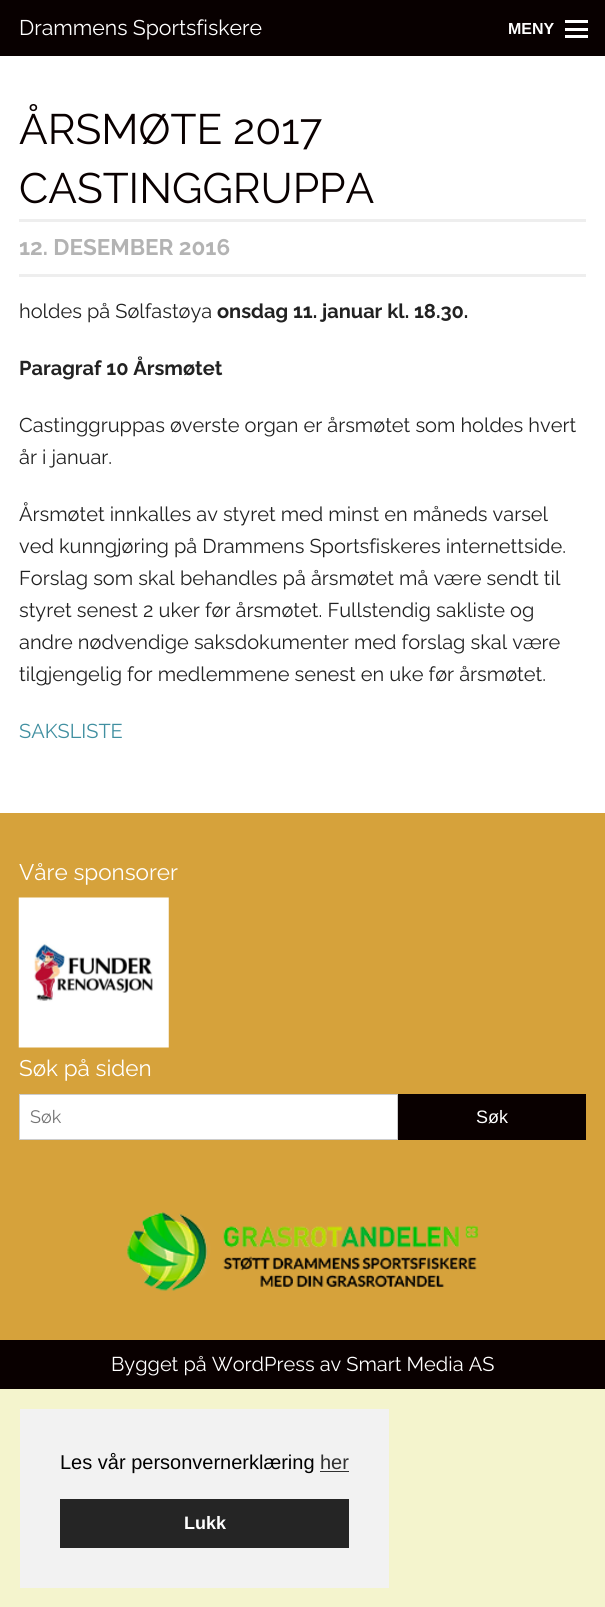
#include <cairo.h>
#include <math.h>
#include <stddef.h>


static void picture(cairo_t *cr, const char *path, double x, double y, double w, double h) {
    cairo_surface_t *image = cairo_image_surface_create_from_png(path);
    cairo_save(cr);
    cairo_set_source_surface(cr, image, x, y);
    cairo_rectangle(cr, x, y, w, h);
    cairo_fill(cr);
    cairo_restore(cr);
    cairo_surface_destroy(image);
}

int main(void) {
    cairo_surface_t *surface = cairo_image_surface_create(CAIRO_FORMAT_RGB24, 605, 1607);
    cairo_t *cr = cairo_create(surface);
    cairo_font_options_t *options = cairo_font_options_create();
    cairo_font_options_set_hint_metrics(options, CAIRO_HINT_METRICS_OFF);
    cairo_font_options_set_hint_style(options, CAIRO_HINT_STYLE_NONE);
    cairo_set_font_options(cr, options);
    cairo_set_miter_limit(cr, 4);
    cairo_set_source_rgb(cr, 0.957, 0.957, 0.804);
    cairo_paint(cr);
    cairo_set_source_rgb(cr, 0.035, 0, 0);
    cairo_rectangle(cr, 0, 0, 605, 56);
    cairo_fill(cr);
    cairo_select_font_face(cr, "Raleway", CAIRO_FONT_SLANT_NORMAL, CAIRO_FONT_WEIGHT_NORMAL);
    cairo_set_font_size(cr, 21.25);
    cairo_set_source_rgb(cr, 1, 1, 1);
    cairo_move_to(cr, 19, 35);
    cairo_show_text(cr, "Drammens Sportsfiskere");
    cairo_select_font_face(cr, "Liberation Sans", CAIRO_FONT_SLANT_NORMAL, CAIRO_FONT_WEIGHT_BOLD);
    cairo_set_font_size(cr, 16);
    cairo_move_to(cr, 508, 34);
    cairo_show_text(cr, "MENY");
    cairo_rectangle(cr, 565, 35, 23, 3);
    cairo_fill(cr);
    cairo_rectangle(cr, 565, 28, 23, 3);
    cairo_fill(cr);
    cairo_rectangle(cr, 565, 20, 23, 3);
    cairo_fill(cr);
    cairo_rectangle(cr, 0, 56, 605, 757);
    cairo_fill(cr);
    cairo_set_source_rgb(cr, 0.933, 0.933, 0.933);
    cairo_rectangle(cr, 19, 219, 567, 3);
    cairo_fill(cr);
    cairo_select_font_face(cr, "Raleway", CAIRO_FONT_SLANT_NORMAL, CAIRO_FONT_WEIGHT_NORMAL);
    cairo_set_font_size(cr, 42.5);
    cairo_set_source_rgb(cr, 0.039, 0, 0);
    cairo_move_to(cr, 19, 144);
    cairo_show_text(cr, "ÅRSMØTE 2017");
    cairo_move_to(cr, 19, 203);
    cairo_show_text(cr, "CASTINGGRUPPA");
    cairo_set_source_rgb(cr, 0.933, 0.933, 0.933);
    cairo_rectangle(cr, 19, 274, 567, 3);
    cairo_fill(cr);
    cairo_select_font_face(cr, "Raleway", CAIRO_FONT_SLANT_NORMAL, CAIRO_FONT_WEIGHT_BOLD);
    cairo_set_font_size(cr, 22.5);
    cairo_set_source_rgb(cr, 0.702, 0.702, 0.702);
    cairo_move_to(cr, 19, 255);
    cairo_show_text(cr, "12. DESEMBER 2016");
    cairo_select_font_face(cr, "Raleway", CAIRO_FONT_SLANT_NORMAL, CAIRO_FONT_WEIGHT_NORMAL);
    cairo_set_font_size(cr, 20);
    cairo_set_source_rgb(cr, 0.133, 0.133, 0.133);
    cairo_move_to(cr, 19, 318);
    cairo_show_text(cr, "holdes på Sølfastøya");
    cairo_select_font_face(cr, "Raleway", CAIRO_FONT_SLANT_NORMAL, CAIRO_FONT_WEIGHT_BOLD);
    cairo_move_to(cr, 217, 318);
    cairo_show_text(cr, "onsdag 11. januar kl. 18.30.");
    cairo_move_to(cr, 19, 375);
    cairo_show_text(cr, "Paragraf 10 Årsmøtet");
    cairo_select_font_face(cr, "Raleway", CAIRO_FONT_SLANT_NORMAL, CAIRO_FONT_WEIGHT_NORMAL);
    cairo_move_to(cr, 19, 432);
    cairo_show_text(cr, "Castinggruppas øverste organ er årsmøtet som holdes hvert");
    cairo_move_to(cr, 19, 464);
    cairo_show_text(cr, "år i januar.");
    cairo_move_to(cr, 19, 521);
    cairo_show_text(cr, "Årsmøtet innkalles av styret med minst en måneds varsel");
    cairo_move_to(cr, 19, 553);
    cairo_show_text(cr, "ved kunngjøring på Drammens Sportsfiskeres internettside.");
    cairo_move_to(cr, 19, 585);
    cairo_show_text(cr, "Forslag som skal behandles på årsmøtet må være sendt til");
    cairo_move_to(cr, 19, 617);
    cairo_show_text(cr, "styret senest 2 uker før årsmøtet. Fullstendig sakliste og");
    cairo_move_to(cr, 19, 649);
    cairo_show_text(cr, "andre nødvendige saksdokumenter med forslag skal være");
    cairo_move_to(cr, 19, 681);
    cairo_show_text(cr, "tilgjengelig for medlemmene senest en uke før årsmøtet.");
    cairo_set_source_rgb(cr, 0.251, 0.561, 0.627);
    cairo_move_to(cr, 19, 738);
    cairo_show_text(cr, "SAKSLISTE");
    cairo_set_source_rgb(cr, 0.839, 0.635, 0.231);
    cairo_rectangle(cr, 0, 813, 605, 527);
    cairo_fill(cr);
    cairo_set_font_size(cr, 22.5);
    cairo_set_source_rgb(cr, 1, 1, 1);
    cairo_move_to(cr, 19, 880);
    cairo_show_text(cr, "Våre sponsorer");
    picture(cr, "img1.png", 18, 897, 151, 151);
    cairo_move_to(cr, 19, 1076);
    cairo_show_text(cr, "Søk på siden");
    cairo_rectangle(cr, 19.5, 1094.5, 378, 45);
    cairo_fill_preserve(cr);
    cairo_set_source_rgb(cr, 0.8, 0.8, 0.8);
    cairo_set_line_width(cr, 1);
    cairo_stroke(cr);
    cairo_set_font_size(cr, 18);
    cairo_set_source_rgb(cr, 0.459, 0.459, 0.459);
    cairo_move_to(cr, 30, 1123);
    cairo_show_text(cr, "Søk");
    cairo_set_source_rgb(cr, 0.039, 0, 0);
    cairo_rectangle(cr, 398, 1094, 188, 46);
    cairo_fill(cr);
    cairo_select_font_face(cr, "Liberation Sans", CAIRO_FONT_SLANT_NORMAL, CAIRO_FONT_WEIGHT_NORMAL);
    cairo_set_source_rgb(cr, 1, 1, 1);
    cairo_move_to(cr, 476, 1123);
    cairo_show_text(cr, "Søk");
    picture(cr, "img2.png", 127, 1212, 352, 79);
    cairo_set_source_rgb(cr, 0.039, 0, 0);
    cairo_rectangle(cr, 0, 1340, 605, 49);
    cairo_fill(cr);
    cairo_select_font_face(cr, "Raleway", CAIRO_FONT_SLANT_NORMAL, CAIRO_FONT_WEIGHT_NORMAL);
    cairo_set_font_size(cr, 20);
    cairo_set_source_rgb(cr, 1, 1, 1);
    cairo_move_to(cr, 111, 1371);
    cairo_show_text(cr, "Bygget på WordPress av Smart Media AS");
    cairo_set_source_rgb(cr, 0.949, 0.949, 0.949);
    cairo_rectangle(cr, 20, 1409, 369, 179);
    cairo_fill(cr);
    cairo_select_font_face(cr, "Liberation Sans", CAIRO_FONT_SLANT_NORMAL, CAIRO_FONT_WEIGHT_NORMAL);
    cairo_set_source_rgb(cr, 0, 0, 0);
    cairo_move_to(cr, 60, 1469);
    cairo_show_text(cr, "Les vår personvernerklæring");
    cairo_set_source_rgb(cr, 0.188, 0.188, 0.188);
    cairo_move_to(cr, 320, 1469);
    cairo_show_text(cr, "her");
    cairo_rectangle(cr, 320, 1471, 29, 1);
    cairo_fill(cr);
    cairo_set_source_rgb(cr, 0.145, 0.145, 0.145);
    cairo_rectangle(cr, 60, 1499, 289, 49);
    cairo_fill(cr);
    cairo_select_font_face(cr, "Liberation Sans", CAIRO_FONT_SLANT_NORMAL, CAIRO_FONT_WEIGHT_BOLD);
    cairo_set_font_size(cr, 18);
    cairo_set_source_rgb(cr, 1, 1, 1);
    cairo_move_to(cr, 184, 1529);
    cairo_show_text(cr, "Lukk");
    cairo_surface_write_to_png(surface, "page.png");
    cairo_font_options_destroy(options);
    cairo_destroy(cr);
    cairo_surface_destroy(surface);
    return 0;
}
